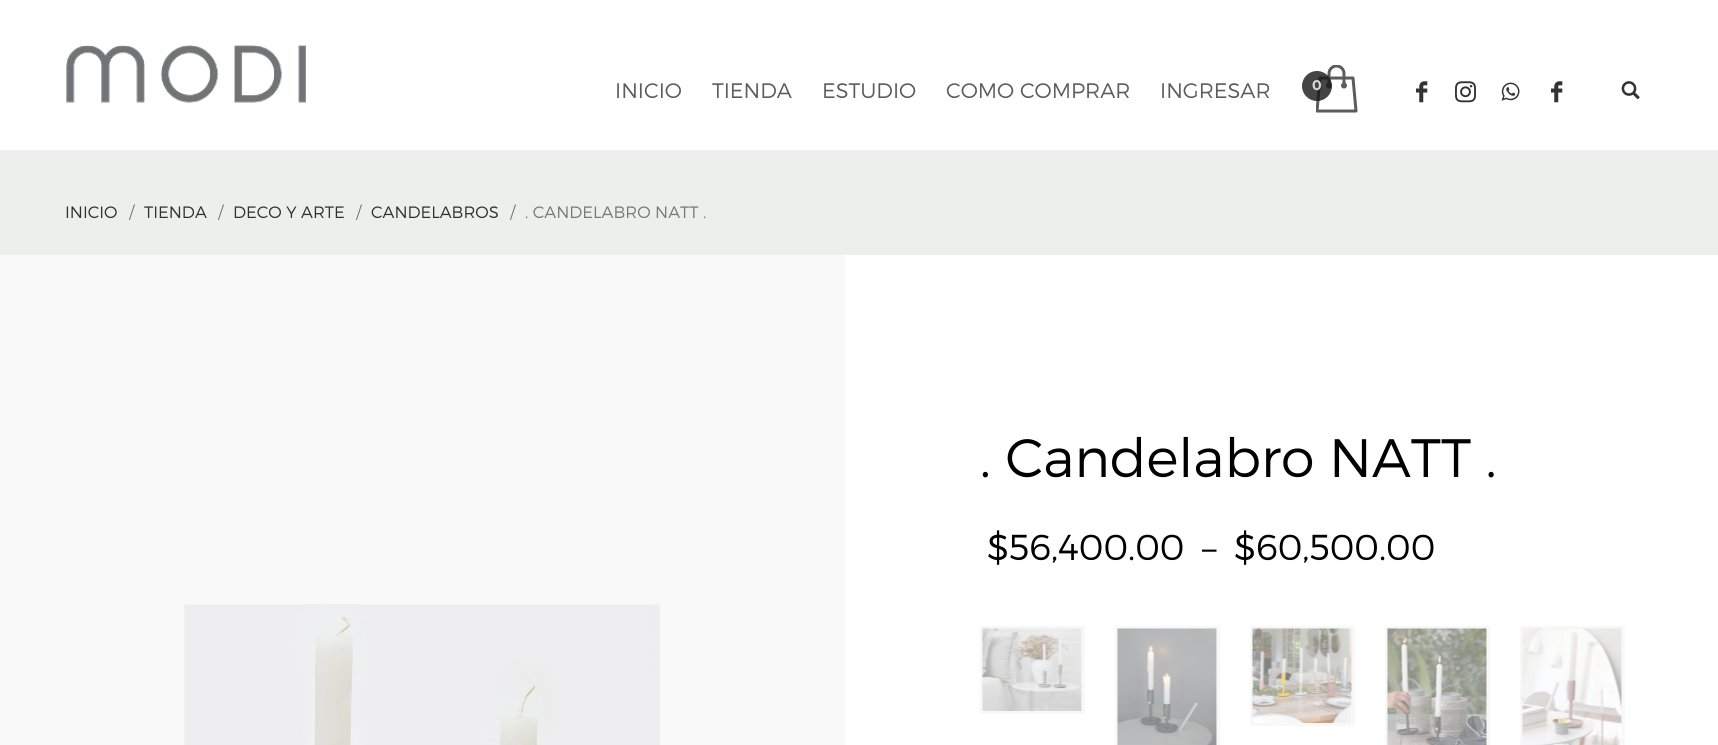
#include <cairo.h>
#include <math.h>
#include <stddef.h>


static void picture(cairo_t *cr, const char *path, double x, double y, double w, double h) {
    cairo_surface_t *image = cairo_image_surface_create_from_png(path);
    cairo_save(cr);
    cairo_set_source_surface(cr, image, x, y);
    cairo_rectangle(cr, x, y, w, h);
    cairo_fill(cr);
    cairo_restore(cr);
    cairo_surface_destroy(image);
}

int main(void) {
    cairo_surface_t *surface = cairo_image_surface_create(CAIRO_FORMAT_RGB24, 1718, 745);
    cairo_t *cr = cairo_create(surface);
    cairo_font_options_t *options = cairo_font_options_create();
    cairo_font_options_set_hint_metrics(options, CAIRO_HINT_METRICS_OFF);
    cairo_font_options_set_hint_style(options, CAIRO_HINT_STYLE_NONE);
    cairo_set_font_options(cr, options);
    cairo_set_miter_limit(cr, 4);
    cairo_set_source_rgb(cr, 0.929, 0.937, 0.929);
    cairo_paint(cr);
    cairo_set_source_rgb(cr, 1, 1, 1);
    cairo_rectangle(cr, 0, 0, 1718, 150);
    cairo_fill(cr);
    picture(cr, "img1.png", 66, 45, 240, 58);
    cairo_select_font_face(cr, "Montserrat Light", CAIRO_FONT_SLANT_NORMAL, CAIRO_FONT_WEIGHT_NORMAL);
    cairo_set_font_size(cr, 21);
    cairo_set_source_rgb(cr, 0.361, 0.361, 0.361);
    cairo_move_to(cr, 615, 98);
    cairo_show_text(cr, "INICIO");
    cairo_move_to(cr, 712, 98);
    cairo_show_text(cr, "TIENDA");
    cairo_move_to(cr, 822, 98);
    cairo_show_text(cr, "ESTUDIO");
    cairo_move_to(cr, 946, 98);
    cairo_show_text(cr, "COMO COMPRAR");
    cairo_move_to(cr, 1160, 98);
    cairo_show_text(cr, "INGRESAR");
    picture(cr, "img2.png", 1316, 65, 42, 48);
    cairo_set_source_rgba(cr, 0.09, 0.09, 0.09, 0.8);
    cairo_arc(cr, 1317, 86, 15, 0, 2 * M_PI);
    cairo_fill(cr);
    cairo_select_font_face(cr, "Montserrat Thin", CAIRO_FONT_SLANT_NORMAL, CAIRO_FONT_WEIGHT_NORMAL);
    cairo_set_font_size(cr, 14);
    cairo_set_source_rgb(cr, 0.843, 0.843, 0.843);
    cairo_move_to(cr, 1312, 90);
    cairo_show_text(cr, "0");
    picture(cr, "img3.png", 1416, 81, 12, 22);
    picture(cr, "img4.png", 1455, 81, 21, 22);
    picture(cr, "img5.png", 1501, 82, 19, 19);
    picture(cr, "img3.png", 1551, 81, 12, 22);
    picture(cr, "img6.png", 1621, 81, 19, 19);
    cairo_select_font_face(cr, "Montserrat Light", CAIRO_FONT_SLANT_NORMAL, CAIRO_FONT_WEIGHT_NORMAL);
    cairo_set_font_size(cr, 16.5);
    cairo_set_source_rgb(cr, 0.184, 0.188, 0.184);
    cairo_move_to(cr, 65, 218);
    cairo_show_text(cr, "INICIO");
    cairo_set_source_rgb(cr, 0.467, 0.471, 0.467);
    cairo_move_to(cr, 129, 218);
    cairo_show_text(cr, "/");
    cairo_set_source_rgb(cr, 0.184, 0.188, 0.184);
    cairo_move_to(cr, 144, 218);
    cairo_show_text(cr, "TIENDA");
    cairo_set_source_rgb(cr, 0.467, 0.471, 0.467);
    cairo_move_to(cr, 218, 218);
    cairo_show_text(cr, "/");
    cairo_set_source_rgb(cr, 0.184, 0.188, 0.184);
    cairo_move_to(cr, 233, 218);
    cairo_show_text(cr, "DECO Y ARTE");
    cairo_set_source_rgb(cr, 0.467, 0.471, 0.467);
    cairo_move_to(cr, 356, 218);
    cairo_show_text(cr, "/");
    cairo_set_source_rgb(cr, 0.184, 0.188, 0.184);
    cairo_move_to(cr, 371, 218);
    cairo_show_text(cr, "CANDELABROS");
    cairo_set_source_rgb(cr, 0.467, 0.471, 0.467);
    cairo_move_to(cr, 510, 218);
    cairo_show_text(cr, "/");
    cairo_move_to(cr, 525, 218);
    cairo_show_text(cr, ". CANDELABRO NATT .");
    cairo_set_source_rgb(cr, 1, 1, 1);
    cairo_rectangle(cr, 845, 255, 873, 490);
    cairo_fill(cr);
    cairo_set_source_rgb(cr, 0.976, 0.976, 0.976);
    cairo_rectangle(cr, 0, 255, 845, 490);
    cairo_fill(cr);
    cairo_set_font_size(cr, 54);
    cairo_set_source_rgb(cr, 0, 0, 0);
    cairo_move_to(cr, 980, 477);
    cairo_show_text(cr, ". Candelabro NATT .");
    cairo_set_font_size(cr, 36);
    cairo_move_to(cr, 987, 560);
    cairo_show_text(cr, "$56,400.00");
    cairo_move_to(cr, 1202, 560);
    cairo_show_text(cr, "–");
    cairo_move_to(cr, 1234, 560);
    cairo_show_text(cr, "$60,500.00");
    cairo_rectangle(cr, 981.5, 627.5, 102, 85);
    cairo_set_source_rgb(cr, 0.969, 0.969, 0.969);
    cairo_set_line_width(cr, 3);
    cairo_stroke(cr);
    picture(cr, "img7.png", 982, 628, 100, 83);
    cairo_rectangle(cr, 1116.5, 627.5, 102, 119);
    cairo_stroke(cr);
    picture(cr, "img8.png", 1117, 628, 100, 117);
    cairo_rectangle(cr, 1251.5, 627.5, 102, 97);
    cairo_stroke(cr);
    picture(cr, "img9.png", 1252, 628, 100, 95);
    cairo_rectangle(cr, 1386.5, 627.5, 102, 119);
    cairo_stroke(cr);
    picture(cr, "img10.png", 1387, 628, 100, 117);
    cairo_rectangle(cr, 1521.5, 627.5, 102, 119);
    cairo_stroke(cr);
    picture(cr, "img11.png", 1522, 628, 100, 117);
    picture(cr, "img12.png", 184, 604, 476, 141);
    cairo_surface_write_to_png(surface, "page.png");
    cairo_font_options_destroy(options);
    cairo_destroy(cr);
    cairo_surface_destroy(surface);
    return 0;
}
